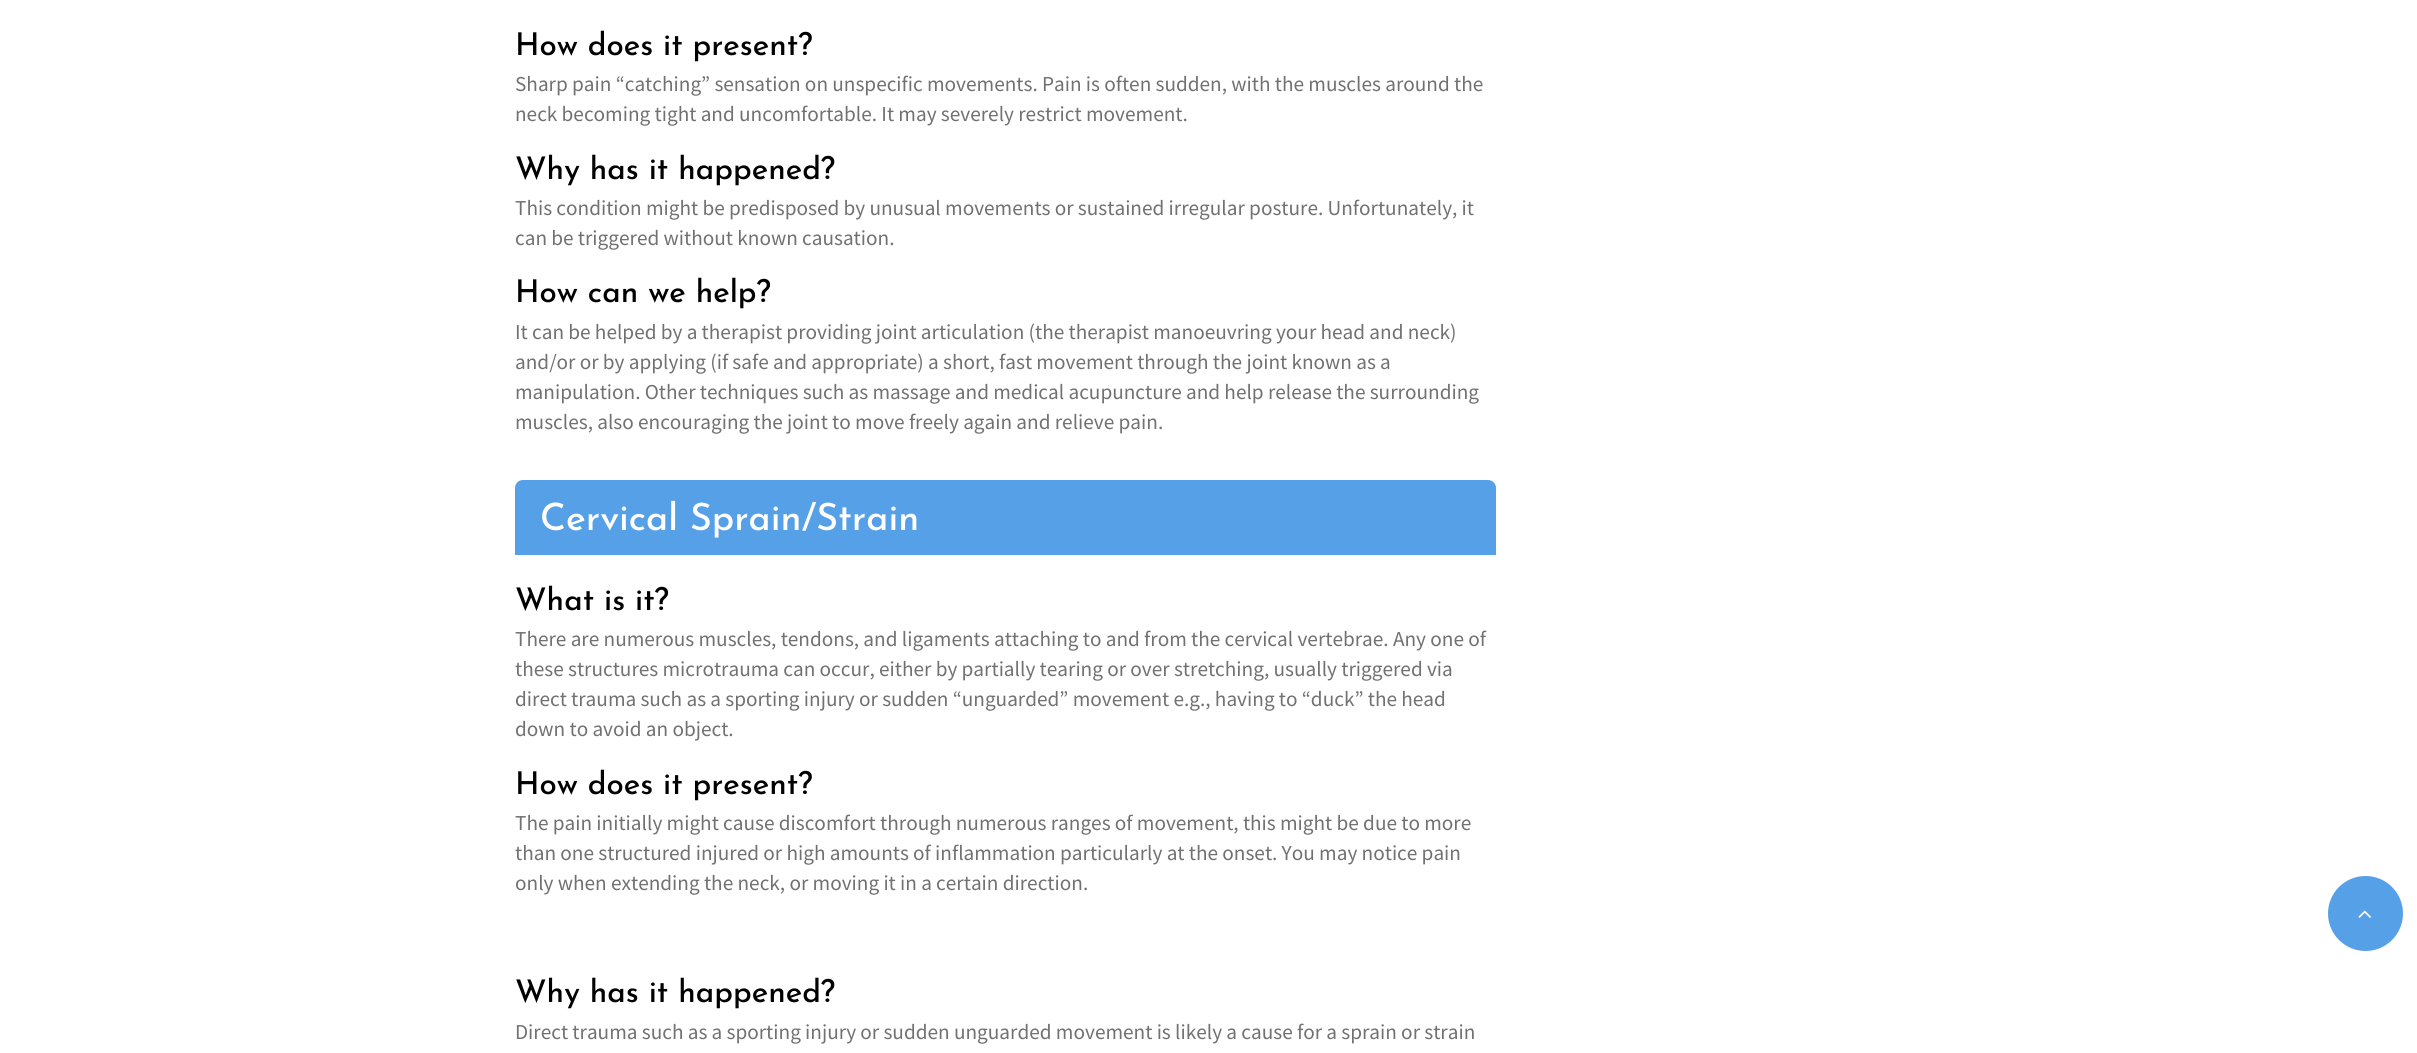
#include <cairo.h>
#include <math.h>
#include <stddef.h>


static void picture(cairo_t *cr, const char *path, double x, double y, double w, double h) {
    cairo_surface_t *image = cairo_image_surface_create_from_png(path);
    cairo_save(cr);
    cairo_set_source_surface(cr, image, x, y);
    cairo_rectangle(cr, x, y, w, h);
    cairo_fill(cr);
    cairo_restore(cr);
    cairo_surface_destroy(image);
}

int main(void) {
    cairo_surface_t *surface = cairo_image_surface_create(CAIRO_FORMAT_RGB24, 2417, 1053);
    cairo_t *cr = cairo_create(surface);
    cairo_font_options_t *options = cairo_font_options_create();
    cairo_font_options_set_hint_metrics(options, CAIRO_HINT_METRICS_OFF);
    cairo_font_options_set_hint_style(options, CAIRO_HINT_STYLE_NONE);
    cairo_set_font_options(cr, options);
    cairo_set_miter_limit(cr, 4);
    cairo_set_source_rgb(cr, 1, 1, 1);
    cairo_paint(cr);
    cairo_select_font_face(cr, "Josefin Sans Medium", CAIRO_FONT_SLANT_NORMAL, CAIRO_FONT_WEIGHT_NORMAL);
    cairo_set_font_size(cr, 31.25);
    cairo_set_source_rgb(cr, 0, 0, 0);
    cairo_move_to(cr, 515, 55);
    cairo_show_text(cr, "How does it present?");
    cairo_select_font_face(cr, "Source Sans Pro", CAIRO_FONT_SLANT_NORMAL, CAIRO_FONT_WEIGHT_NORMAL);
    cairo_set_font_size(cr, 21.25);
    cairo_set_source_rgb(cr, 0.443, 0.443, 0.443);
    cairo_move_to(cr, 515, 91);
    cairo_show_text(cr, "Sharp pain “catching” sensation on unspecific movements. Pain is often sudden, with the muscles around the");
    cairo_move_to(cr, 515, 121);
    cairo_show_text(cr, "neck becoming tight and uncomfortable. It may severely restrict movement.");
    cairo_select_font_face(cr, "Josefin Sans Medium", CAIRO_FONT_SLANT_NORMAL, CAIRO_FONT_WEIGHT_NORMAL);
    cairo_set_font_size(cr, 31.25);
    cairo_set_source_rgb(cr, 0, 0, 0);
    cairo_move_to(cr, 515, 179);
    cairo_show_text(cr, "Why has it happened?");
    cairo_select_font_face(cr, "Source Sans Pro", CAIRO_FONT_SLANT_NORMAL, CAIRO_FONT_WEIGHT_NORMAL);
    cairo_set_font_size(cr, 21.25);
    cairo_set_source_rgb(cr, 0.443, 0.443, 0.443);
    cairo_move_to(cr, 515, 215);
    cairo_show_text(cr, "This condition might be predisposed by unusual movements or sustained irregular posture. Unfortunately, it");
    cairo_move_to(cr, 515, 245);
    cairo_show_text(cr, "can be triggered without known causation.");
    cairo_select_font_face(cr, "Josefin Sans Medium", CAIRO_FONT_SLANT_NORMAL, CAIRO_FONT_WEIGHT_NORMAL);
    cairo_set_font_size(cr, 31.25);
    cairo_set_source_rgb(cr, 0, 0, 0);
    cairo_move_to(cr, 515, 302);
    cairo_show_text(cr, "How can we help?");
    cairo_select_font_face(cr, "Source Sans Pro", CAIRO_FONT_SLANT_NORMAL, CAIRO_FONT_WEIGHT_NORMAL);
    cairo_set_font_size(cr, 21.25);
    cairo_set_source_rgb(cr, 0.443, 0.443, 0.443);
    cairo_move_to(cr, 515, 339);
    cairo_show_text(cr, "It can be helped by a therapist providing joint articulation (the therapist manoeuvring your head and neck)");
    cairo_move_to(cr, 515, 369);
    cairo_show_text(cr, "and/or or by applying (if safe and appropriate) a short, fast movement through the joint known as a");
    cairo_move_to(cr, 515, 399);
    cairo_show_text(cr, "manipulation. Other techniques such as massage and medical acupuncture and help release the surrounding");
    cairo_move_to(cr, 515, 429);
    cairo_show_text(cr, "muscles, also encouraging the joint to move freely again and relieve pain.");
    cairo_set_source_rgb(cr, 0.337, 0.627, 0.906);
    cairo_new_path(cr);
    cairo_move_to(cr, 523, 480);
    cairo_line_to(cr, 1488, 480);
    cairo_curve_to(cr, 1492.5, 480, 1496, 483.5, 1496, 488);
    cairo_line_to(cr, 1496, 555);
    cairo_line_to(cr, 515, 555);
    cairo_line_to(cr, 515, 488);
    cairo_curve_to(cr, 515, 483.5, 518.5, 480, 523, 480);
    cairo_close_path(cr);
    cairo_fill(cr);
    cairo_select_font_face(cr, "Josefin Sans Medium", CAIRO_FONT_SLANT_NORMAL, CAIRO_FONT_WEIGHT_NORMAL);
    cairo_set_font_size(cr, 37.5);
    cairo_set_source_rgb(cr, 1, 1, 1);
    cairo_move_to(cr, 540, 530);
    cairo_show_text(cr, "Cervical Sprain/Strain");
    cairo_set_font_size(cr, 31.25);
    cairo_set_source_rgb(cr, 0, 0, 0);
    cairo_move_to(cr, 515, 610);
    cairo_show_text(cr, "What is it?");
    cairo_select_font_face(cr, "Source Sans Pro", CAIRO_FONT_SLANT_NORMAL, CAIRO_FONT_WEIGHT_NORMAL);
    cairo_set_font_size(cr, 21.25);
    cairo_set_source_rgb(cr, 0.443, 0.443, 0.443);
    cairo_move_to(cr, 515, 646);
    cairo_show_text(cr, "There are numerous muscles, tendons, and ligaments attaching to and from the cervical vertebrae. Any one of");
    cairo_move_to(cr, 515, 676);
    cairo_show_text(cr, "these structures microtrauma can occur, either by partially tearing or over stretching, usually triggered via");
    cairo_move_to(cr, 515, 706);
    cairo_show_text(cr, "direct trauma such as a sporting injury or sudden “unguarded” movement e.g., having to “duck” the head");
    cairo_move_to(cr, 515, 736);
    cairo_show_text(cr, "down to avoid an object.");
    cairo_select_font_face(cr, "Josefin Sans Medium", CAIRO_FONT_SLANT_NORMAL, CAIRO_FONT_WEIGHT_NORMAL);
    cairo_set_font_size(cr, 31.25);
    cairo_set_source_rgb(cr, 0, 0, 0);
    cairo_move_to(cr, 515, 794);
    cairo_show_text(cr, "How does it present?");
    cairo_select_font_face(cr, "Source Sans Pro", CAIRO_FONT_SLANT_NORMAL, CAIRO_FONT_WEIGHT_NORMAL);
    cairo_set_font_size(cr, 21.25);
    cairo_set_source_rgb(cr, 0.443, 0.443, 0.443);
    cairo_move_to(cr, 515, 830);
    cairo_show_text(cr, "The pain initially might cause discomfort through numerous ranges of movement, this might be due to more");
    cairo_move_to(cr, 515, 860);
    cairo_show_text(cr, "than one structured injured or high amounts of inflammation particularly at the onset. You may notice pain");
    cairo_move_to(cr, 515, 890);
    cairo_show_text(cr, "only when extending the neck, or moving it in a certain direction.");
    cairo_select_font_face(cr, "Josefin Sans Medium", CAIRO_FONT_SLANT_NORMAL, CAIRO_FONT_WEIGHT_NORMAL);
    cairo_set_font_size(cr, 31.25);
    cairo_set_source_rgb(cr, 0, 0, 0);
    cairo_move_to(cr, 515, 1002);
    cairo_show_text(cr, "Why has it happened?");
    cairo_select_font_face(cr, "Source Sans Pro", CAIRO_FONT_SLANT_NORMAL, CAIRO_FONT_WEIGHT_NORMAL);
    cairo_set_font_size(cr, 21.25);
    cairo_set_source_rgb(cr, 0.443, 0.443, 0.443);
    cairo_move_to(cr, 515, 1039);
    cairo_show_text(cr, "Direct trauma such as a sporting injury or sudden unguarded movement is likely a cause for a sprain or strain");
    cairo_set_source_rgb(cr, 0.337, 0.627, 0.906);
    cairo_new_path(cr);
    cairo_arc(cr, 2365.5, 913.5, 37.5, 0, 2 * M_PI);
    cairo_fill(cr);
    picture(cr, "img1.png", 2358, 910, 13, 8);
    cairo_surface_write_to_png(surface, "page.png");
    cairo_font_options_destroy(options);
    cairo_destroy(cr);
    cairo_surface_destroy(surface);
    return 0;
}
